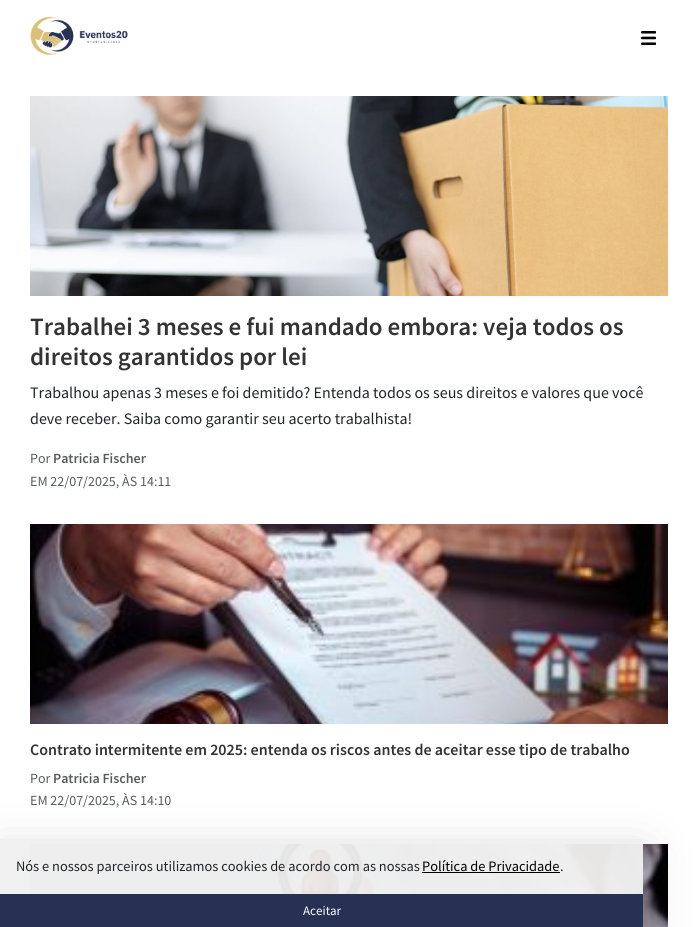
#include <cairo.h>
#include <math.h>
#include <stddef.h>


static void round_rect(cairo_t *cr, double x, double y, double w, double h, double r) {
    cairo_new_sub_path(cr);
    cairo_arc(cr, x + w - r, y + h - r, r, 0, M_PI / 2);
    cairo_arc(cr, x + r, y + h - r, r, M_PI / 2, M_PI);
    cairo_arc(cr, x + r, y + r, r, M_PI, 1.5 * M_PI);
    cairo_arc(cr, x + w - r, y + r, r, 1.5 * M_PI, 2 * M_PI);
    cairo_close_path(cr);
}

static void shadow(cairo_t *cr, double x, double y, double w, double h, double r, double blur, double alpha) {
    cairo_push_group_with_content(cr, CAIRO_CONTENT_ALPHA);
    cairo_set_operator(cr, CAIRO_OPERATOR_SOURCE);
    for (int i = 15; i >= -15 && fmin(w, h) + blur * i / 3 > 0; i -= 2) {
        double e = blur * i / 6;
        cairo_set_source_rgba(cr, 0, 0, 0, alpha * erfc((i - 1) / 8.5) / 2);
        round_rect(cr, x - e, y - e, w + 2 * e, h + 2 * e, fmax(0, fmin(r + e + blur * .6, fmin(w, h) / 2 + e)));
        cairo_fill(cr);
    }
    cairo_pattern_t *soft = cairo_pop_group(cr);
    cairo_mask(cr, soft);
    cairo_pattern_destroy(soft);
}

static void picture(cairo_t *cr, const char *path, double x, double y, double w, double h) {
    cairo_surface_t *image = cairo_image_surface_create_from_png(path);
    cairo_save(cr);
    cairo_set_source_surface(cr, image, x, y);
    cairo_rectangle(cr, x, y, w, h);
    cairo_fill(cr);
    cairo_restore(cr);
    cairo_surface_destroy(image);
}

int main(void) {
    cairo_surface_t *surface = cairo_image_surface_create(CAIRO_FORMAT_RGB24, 698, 927);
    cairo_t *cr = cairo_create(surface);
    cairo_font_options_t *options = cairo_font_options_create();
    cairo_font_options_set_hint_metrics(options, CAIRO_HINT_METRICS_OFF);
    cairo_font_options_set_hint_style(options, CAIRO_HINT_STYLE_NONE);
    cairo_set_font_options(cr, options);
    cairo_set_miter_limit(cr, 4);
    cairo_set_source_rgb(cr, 1, 1, 1);
    cairo_paint(cr);
    cairo_set_source_rgb(cr, 0.941, 0.941, 0.941);
    cairo_rectangle(cr, 0, 839, 643, 55);
    cairo_fill(cr);
    picture(cr, "img1.png", 30, 16, 98, 40);
    picture(cr, "img2.png", 641, 31, 15, 14);
    picture(cr, "img3.png", 30, 96, 638, 200);
    cairo_select_font_face(cr, "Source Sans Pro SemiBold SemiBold", CAIRO_FONT_SLANT_NORMAL, CAIRO_FONT_WEIGHT_NORMAL);
    cairo_set_font_size(cr, 25);
    cairo_set_source_rgb(cr, 0.2, 0.2, 0.2);
    cairo_move_to(cr, 30, 335);
    cairo_show_text(cr, "Trabalhei 3 meses e fui mandado embora: veja todos os");
    cairo_move_to(cr, 30, 365);
    cairo_show_text(cr, "direitos garantidos por lei");
    cairo_select_font_face(cr, "Source Sans Pro", CAIRO_FONT_SLANT_NORMAL, CAIRO_FONT_WEIGHT_NORMAL);
    cairo_set_font_size(cr, 16);
    cairo_set_source_rgb(cr, 0.129, 0.145, 0.161);
    cairo_move_to(cr, 30, 398);
    cairo_show_text(cr, "Trabalhou apenas 3 meses e foi demitido? Entenda todos os seus direitos e valores que você");
    cairo_move_to(cr, 30, 424);
    cairo_show_text(cr, "deve receber. Saiba como garantir seu acerto trabalhista!");
    cairo_set_font_size(cr, 14);
    cairo_set_source_rgb(cr, 0.349, 0.361, 0.373);
    cairo_move_to(cr, 30, 463);
    cairo_show_text(cr, "Por");
    cairo_select_font_face(cr, "Source Sans Pro SemiBold SemiBold", CAIRO_FONT_SLANT_NORMAL, CAIRO_FONT_WEIGHT_NORMAL);
    cairo_move_to(cr, 53, 463);
    cairo_show_text(cr, "Patricia Fischer");
    cairo_select_font_face(cr, "Source Sans Pro", CAIRO_FONT_SLANT_NORMAL, CAIRO_FONT_WEIGHT_NORMAL);
    cairo_move_to(cr, 30, 486);
    cairo_show_text(cr, "EM 22/07/2025, ÀS 14:11");
    picture(cr, "img4.png", 30, 524, 638, 200);
    cairo_select_font_face(cr, "Source Sans Pro SemiBold SemiBold", CAIRO_FONT_SLANT_NORMAL, CAIRO_FONT_WEIGHT_NORMAL);
    cairo_set_font_size(cr, 16);
    cairo_set_source_rgb(cr, 0.2, 0.2, 0.2);
    cairo_move_to(cr, 30, 755);
    cairo_show_text(cr, "Contrato intermitente em 2025: entenda os riscos antes de aceitar esse tipo de trabalho");
    cairo_select_font_face(cr, "Source Sans Pro", CAIRO_FONT_SLANT_NORMAL, CAIRO_FONT_WEIGHT_NORMAL);
    cairo_set_font_size(cr, 14);
    cairo_set_source_rgb(cr, 0.349, 0.361, 0.373);
    cairo_move_to(cr, 30, 783);
    cairo_show_text(cr, "Por");
    cairo_select_font_face(cr, "Source Sans Pro SemiBold SemiBold", CAIRO_FONT_SLANT_NORMAL, CAIRO_FONT_WEIGHT_NORMAL);
    cairo_move_to(cr, 53, 783);
    cairo_show_text(cr, "Patricia Fischer");
    cairo_select_font_face(cr, "Source Sans Pro", CAIRO_FONT_SLANT_NORMAL, CAIRO_FONT_WEIGHT_NORMAL);
    cairo_move_to(cr, 30, 805);
    cairo_show_text(cr, "EM 22/07/2025, ÀS 14:10");
    picture(cr, "img5.png", 30, 844, 638, 83);
    cairo_save(cr);
    cairo_set_fill_rule(cr, CAIRO_FILL_RULE_EVEN_ODD);
    cairo_new_path(cr);
    cairo_move_to(cr, 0, 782);
    cairo_line_to(cr, 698, 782);
    cairo_line_to(cr, 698, 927);
    cairo_line_to(cr, 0, 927);
    cairo_close_path(cr);
    cairo_move_to(cr, 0, 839);
    cairo_line_to(cr, 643, 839);
    cairo_line_to(cr, 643, 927);
    cairo_line_to(cr, 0, 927);
    cairo_close_path(cr);
    cairo_clip(cr);
    cairo_set_source_rgb(cr, 0, 0, 0);
    shadow(cr, 0, 855, 643, 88, 0, 24, 0.18);
    cairo_restore(cr);
    cairo_set_font_size(cr, 14.4);
    cairo_set_source_rgb(cr, 0.129, 0.145, 0.161);
    cairo_move_to(cr, 16, 871);
    cairo_show_text(cr, "Nós e nossos parceiros utilizamos cookies de acordo com as nossas");
    cairo_set_source_rgb(cr, 0, 0, 0);
    cairo_move_to(cr, 422, 871);
    cairo_show_text(cr, "Política de Privacidade");
    cairo_rectangle(cr, 422, 872, 138, 1);
    cairo_fill(cr);
    cairo_set_source_rgb(cr, 0.129, 0.145, 0.161);
    cairo_move_to(cr, 560, 871);
    cairo_show_text(cr, ".");
    cairo_set_source_rgb(cr, 0.153, 0.192, 0.325);
    cairo_rectangle(cr, 0, 894, 643, 33);
    cairo_fill(cr);
    cairo_set_font_size(cr, 13);
    cairo_set_source_rgb(cr, 1, 1, 1);
    cairo_move_to(cr, 303, 915);
    cairo_show_text(cr, "Aceitar");
    cairo_surface_write_to_png(surface, "page.png");
    cairo_font_options_destroy(options);
    cairo_destroy(cr);
    cairo_surface_destroy(surface);
    return 0;
}
